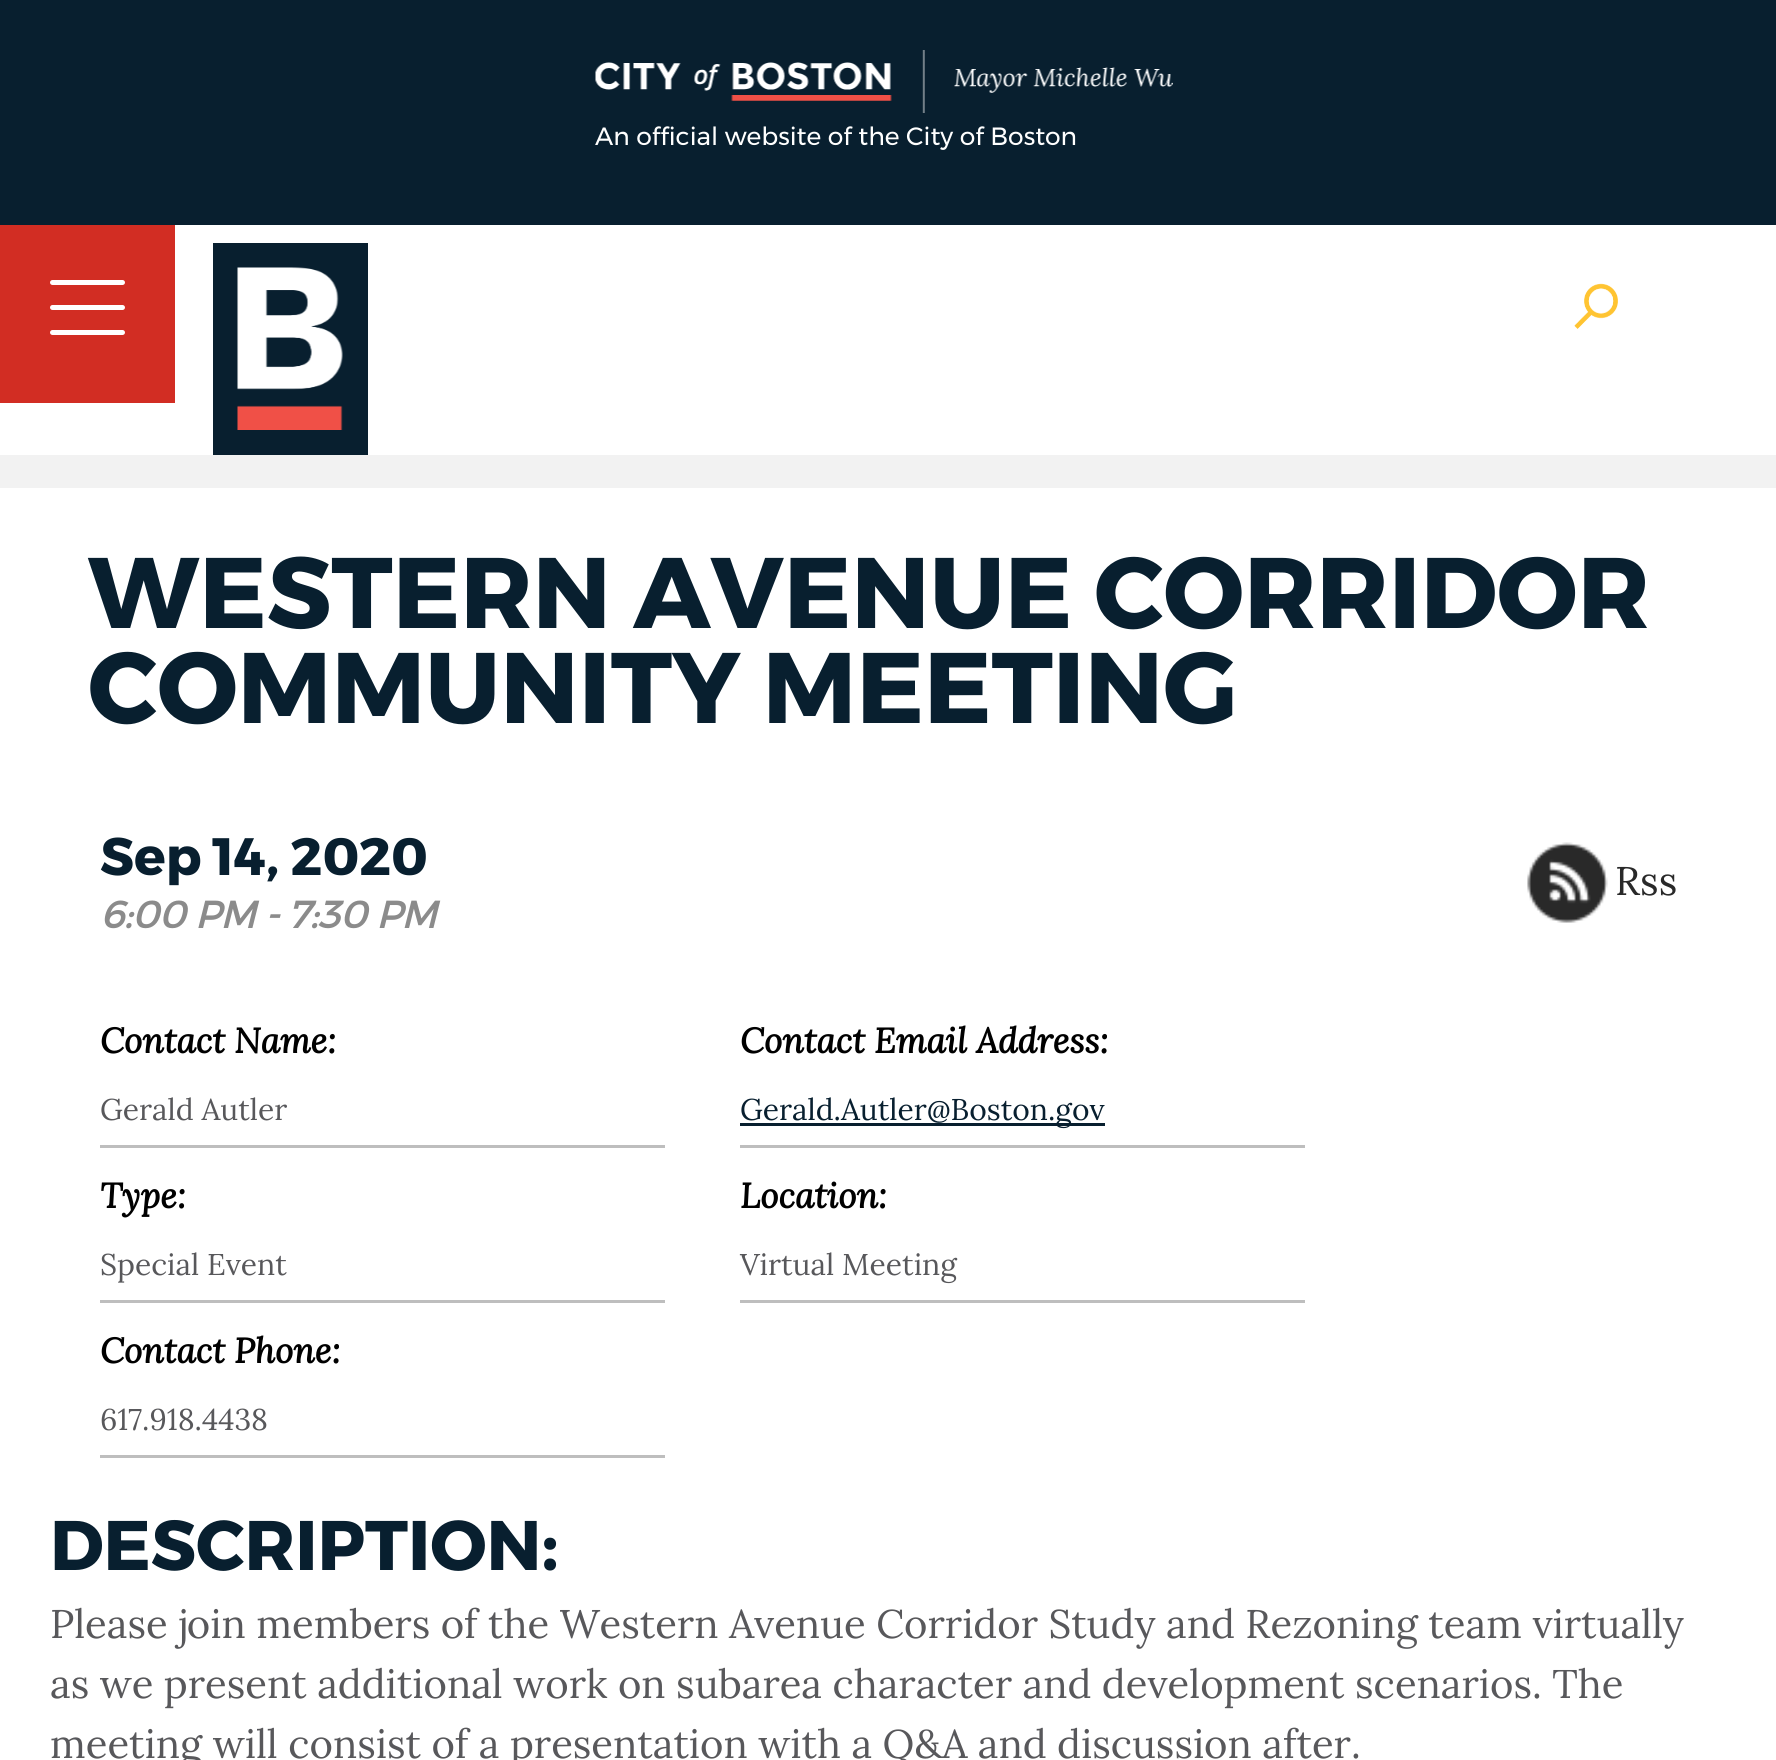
#include <cairo.h>
#include <math.h>
#include <stddef.h>


static void round_rect(cairo_t *cr, double x, double y, double w, double h, double r) {
    cairo_new_sub_path(cr);
    cairo_arc(cr, x + w - r, y + h - r, r, 0, M_PI / 2);
    cairo_arc(cr, x + r, y + h - r, r, M_PI / 2, M_PI);
    cairo_arc(cr, x + r, y + r, r, M_PI, 1.5 * M_PI);
    cairo_arc(cr, x + w - r, y + r, r, 1.5 * M_PI, 2 * M_PI);
    cairo_close_path(cr);
}

static void picture(cairo_t *cr, const char *path, double x, double y, double w, double h) {
    cairo_surface_t *image = cairo_image_surface_create_from_png(path);
    cairo_save(cr);
    cairo_set_source_surface(cr, image, x, y);
    cairo_rectangle(cr, x, y, w, h);
    cairo_fill(cr);
    cairo_restore(cr);
    cairo_surface_destroy(image);
}

int main(void) {
    cairo_surface_t *surface = cairo_image_surface_create(CAIRO_FORMAT_RGB24, 1776, 1760);
    cairo_t *cr = cairo_create(surface);
    cairo_font_options_t *options = cairo_font_options_create();
    cairo_font_options_set_hint_metrics(options, CAIRO_HINT_METRICS_OFF);
    cairo_font_options_set_hint_style(options, CAIRO_HINT_STYLE_NONE);
    cairo_set_font_options(cr, options);
    cairo_set_miter_limit(cr, 4);
    cairo_set_source_rgb(cr, 0.949, 0.949, 0.949);
    cairo_paint(cr);
    cairo_set_source_rgb(cr, 0.035, 0.122, 0.184);
    cairo_rectangle(cr, 0, 0, 1776, 225);
    cairo_fill(cr);
    picture(cr, "img1.png", 595, 50, 578, 63);
    cairo_select_font_face(cr, "Montserrat", CAIRO_FONT_SLANT_NORMAL, CAIRO_FONT_WEIGHT_NORMAL);
    cairo_set_font_size(cr, 25);
    cairo_set_source_rgb(cr, 1, 1, 1);
    cairo_move_to(cr, 595, 145);
    cairo_show_text(cr, "An official website of the City of Boston");
    cairo_rectangle(cr, 0, 225, 1776, 230);
    cairo_fill(cr);
    cairo_set_source_rgb(cr, 0.035, 0.122, 0.184);
    cairo_rectangle(cr, 213, 243, 155, 212);
    cairo_fill(cr);
    picture(cr, "img2.png", 237, 267, 106, 163);
    picture(cr, "img3.png", 1574, 283, 44, 46);
    cairo_set_source_rgb(cr, 0.824, 0.176, 0.137);
    cairo_rectangle(cr, 0, 225, 175, 178);
    cairo_fill(cr);
    cairo_set_source_rgb(cr, 1, 1, 1);
    round_rect(cr, 50, 330, 75, 5, 2.5);
    cairo_fill(cr);
    round_rect(cr, 50, 280, 75, 5, 2.5);
    cairo_fill(cr);
    round_rect(cr, 50, 305, 75, 5, 2.5);
    cairo_fill(cr);
    cairo_rectangle(cr, 0, 488, 1776, 1272);
    cairo_fill(cr);
    cairo_select_font_face(cr, "Montserrat", CAIRO_FONT_SLANT_NORMAL, CAIRO_FONT_WEIGHT_BOLD);
    cairo_set_font_size(cr, 100);
    cairo_set_source_rgb(cr, 0.035, 0.122, 0.184);
    cairo_move_to(cr, 88, 628);
    cairo_show_text(cr, "WESTERN AVENUE CORRIDOR");
    cairo_move_to(cr, 88, 723);
    cairo_show_text(cr, "COMMUNITY MEETING");
    cairo_set_font_size(cr, 52.5);
    cairo_move_to(cr, 100, 875);
    cairo_show_text(cr, "Sep 14, 2020");
    picture(cr, "img4.png", 1527, 842, 81, 81);
    cairo_select_font_face(cr, "Lora", CAIRO_FONT_SLANT_NORMAL, CAIRO_FONT_WEIGHT_NORMAL);
    cairo_set_font_size(cr, 40);
    cairo_set_source_rgb(cr, 0.161, 0.161, 0.161);
    cairo_move_to(cr, 1615, 895);
    cairo_show_text(cr, "Rss");
    cairo_select_font_face(cr, "Montserrat", CAIRO_FONT_SLANT_ITALIC, CAIRO_FONT_WEIGHT_BOLD);
    cairo_set_font_size(cr, 37.5);
    cairo_set_source_rgb(cr, 0.545, 0.545, 0.545);
    cairo_move_to(cr, 100, 928);
    cairo_show_text(cr, "6:00 PM - 7:30 PM");
    cairo_set_source_rgb(cr, 0.745, 0.745, 0.745);
    cairo_rectangle(cr, 100, 1145, 565, 3);
    cairo_fill(cr);
    cairo_select_font_face(cr, "Lora", CAIRO_FONT_SLANT_ITALIC, CAIRO_FONT_WEIGHT_BOLD);
    cairo_set_font_size(cr, 35);
    cairo_set_source_rgb(cr, 0, 0, 0);
    cairo_move_to(cr, 100, 1053);
    cairo_show_text(cr, "Contact Name:");
    cairo_select_font_face(cr, "Lora", CAIRO_FONT_SLANT_NORMAL, CAIRO_FONT_WEIGHT_NORMAL);
    cairo_set_font_size(cr, 30);
    cairo_set_source_rgb(cr, 0.345, 0.345, 0.357);
    cairo_move_to(cr, 100, 1120);
    cairo_show_text(cr, "Gerald Autler");
    cairo_set_source_rgb(cr, 0.745, 0.745, 0.745);
    cairo_rectangle(cr, 740, 1145, 565, 3);
    cairo_fill(cr);
    cairo_select_font_face(cr, "Lora", CAIRO_FONT_SLANT_ITALIC, CAIRO_FONT_WEIGHT_BOLD);
    cairo_set_font_size(cr, 35);
    cairo_set_source_rgb(cr, 0, 0, 0);
    cairo_move_to(cr, 740, 1053);
    cairo_show_text(cr, "Contact Email Address:");
    cairo_set_source_rgb(cr, 0.035, 0.122, 0.184);
    cairo_rectangle(cr, 740, 1123, 365, 3);
    cairo_fill(cr);
    cairo_select_font_face(cr, "Lora", CAIRO_FONT_SLANT_NORMAL, CAIRO_FONT_WEIGHT_NORMAL);
    cairo_set_font_size(cr, 30);
    cairo_move_to(cr, 740, 1120);
    cairo_show_text(cr, "Gerald.Autler@Boston.gov");
    cairo_set_source_rgb(cr, 0.745, 0.745, 0.745);
    cairo_rectangle(cr, 100, 1300, 565, 3);
    cairo_fill(cr);
    cairo_select_font_face(cr, "Lora", CAIRO_FONT_SLANT_ITALIC, CAIRO_FONT_WEIGHT_BOLD);
    cairo_set_font_size(cr, 35);
    cairo_set_source_rgb(cr, 0, 0, 0);
    cairo_move_to(cr, 100, 1208);
    cairo_show_text(cr, "Type:");
    cairo_select_font_face(cr, "Lora", CAIRO_FONT_SLANT_NORMAL, CAIRO_FONT_WEIGHT_NORMAL);
    cairo_set_font_size(cr, 30);
    cairo_set_source_rgb(cr, 0.345, 0.345, 0.357);
    cairo_move_to(cr, 100, 1275);
    cairo_show_text(cr, "Special Event");
    cairo_set_source_rgb(cr, 0.745, 0.745, 0.745);
    cairo_rectangle(cr, 740, 1300, 565, 3);
    cairo_fill(cr);
    cairo_select_font_face(cr, "Lora", CAIRO_FONT_SLANT_ITALIC, CAIRO_FONT_WEIGHT_BOLD);
    cairo_set_font_size(cr, 35);
    cairo_set_source_rgb(cr, 0, 0, 0);
    cairo_move_to(cr, 740, 1208);
    cairo_show_text(cr, "Location:");
    cairo_select_font_face(cr, "Lora", CAIRO_FONT_SLANT_NORMAL, CAIRO_FONT_WEIGHT_NORMAL);
    cairo_set_font_size(cr, 30);
    cairo_set_source_rgb(cr, 0.345, 0.345, 0.357);
    cairo_move_to(cr, 740, 1275);
    cairo_show_text(cr, "Virtual Meeting");
    cairo_set_source_rgb(cr, 0.745, 0.745, 0.745);
    cairo_rectangle(cr, 100, 1455, 565, 3);
    cairo_fill(cr);
    cairo_select_font_face(cr, "Lora", CAIRO_FONT_SLANT_ITALIC, CAIRO_FONT_WEIGHT_BOLD);
    cairo_set_font_size(cr, 35);
    cairo_set_source_rgb(cr, 0, 0, 0);
    cairo_move_to(cr, 100, 1363);
    cairo_show_text(cr, "Contact Phone:");
    cairo_select_font_face(cr, "Lora", CAIRO_FONT_SLANT_NORMAL, CAIRO_FONT_WEIGHT_NORMAL);
    cairo_set_font_size(cr, 30);
    cairo_set_source_rgb(cr, 0.345, 0.345, 0.357);
    cairo_move_to(cr, 100, 1430);
    cairo_show_text(cr, "617.918.4438");
    cairo_select_font_face(cr, "Montserrat", CAIRO_FONT_SLANT_NORMAL, CAIRO_FONT_WEIGHT_BOLD);
    cairo_set_font_size(cr, 70);
    cairo_set_source_rgb(cr, 0.035, 0.122, 0.184);
    cairo_move_to(cr, 50, 1570);
    cairo_show_text(cr, "DESCRIPTION:");
    cairo_select_font_face(cr, "Lora", CAIRO_FONT_SLANT_NORMAL, CAIRO_FONT_WEIGHT_NORMAL);
    cairo_set_font_size(cr, 40);
    cairo_set_source_rgb(cr, 0.345, 0.345, 0.357);
    cairo_move_to(cr, 50, 1638);
    cairo_show_text(cr, "Please join members of the Western Avenue Corridor Study and Rezoning team virtually");
    cairo_move_to(cr, 50, 1698);
    cairo_show_text(cr, "as we present additional work on subarea character and development scenarios. The");
    cairo_move_to(cr, 50, 1758);
    cairo_show_text(cr, "meeting will consist of a presentation with a Q&A and discussion after.");
    cairo_surface_write_to_png(surface, "page.png");
    cairo_font_options_destroy(options);
    cairo_destroy(cr);
    cairo_surface_destroy(surface);
    return 0;
}
